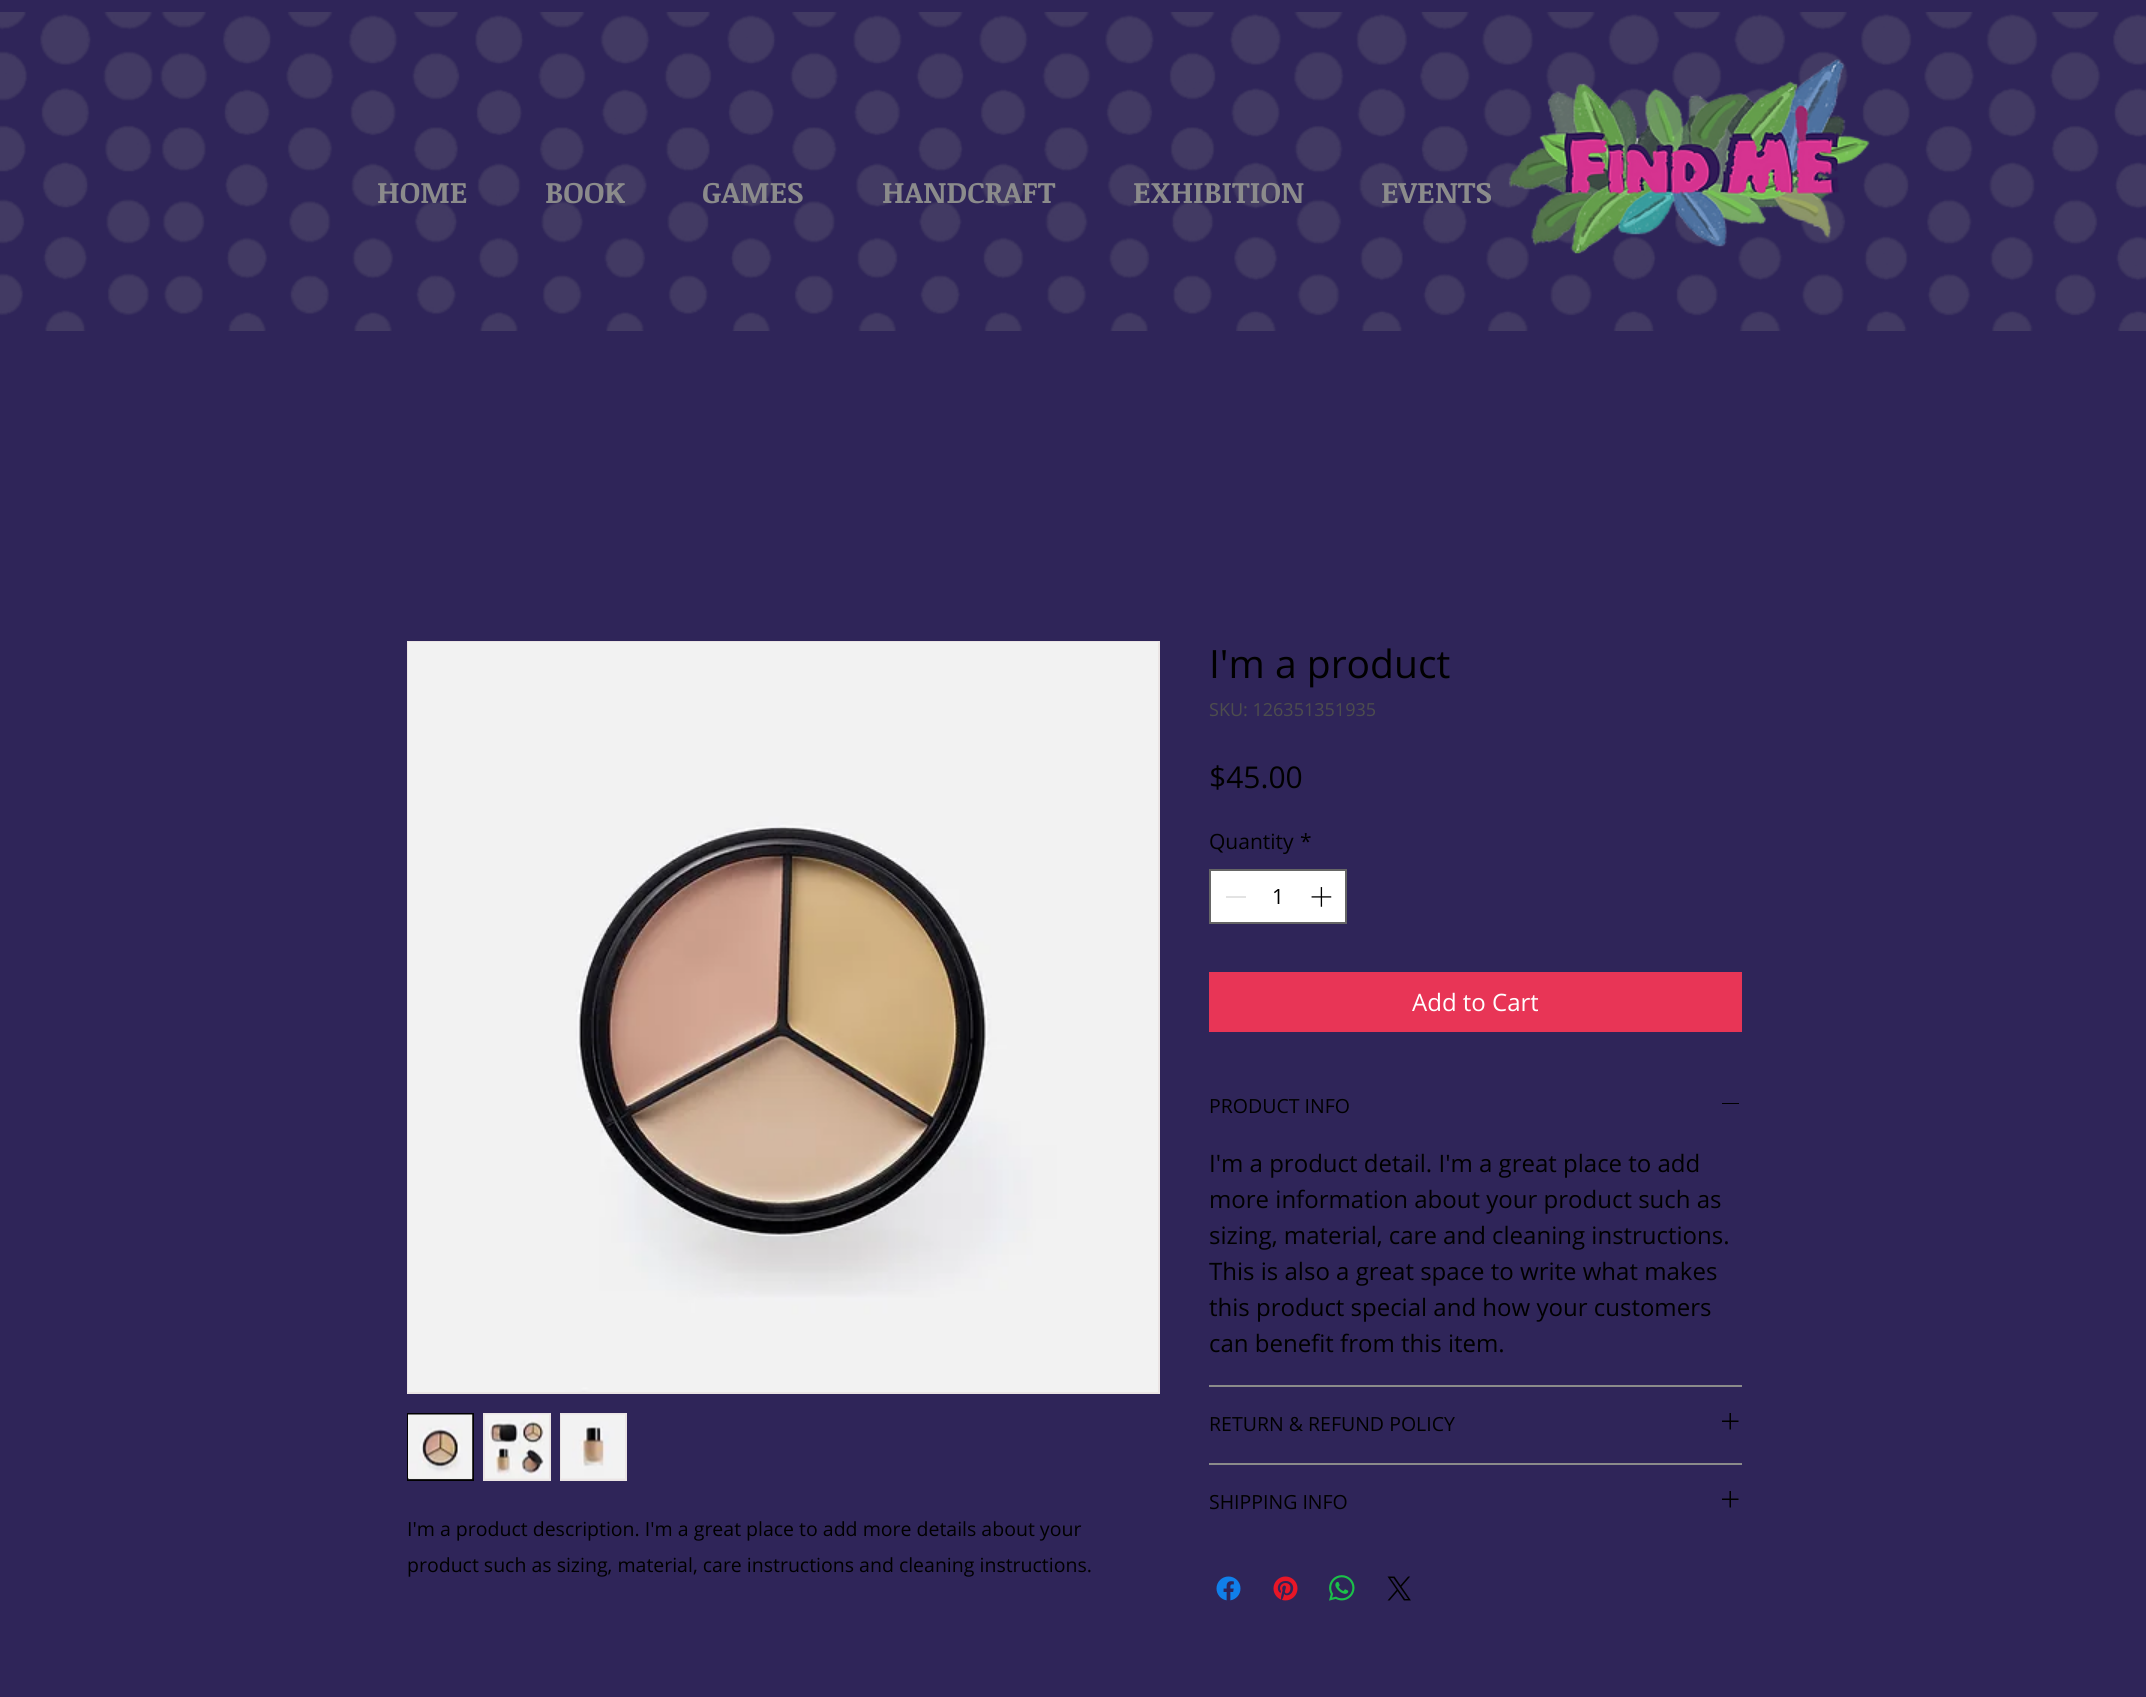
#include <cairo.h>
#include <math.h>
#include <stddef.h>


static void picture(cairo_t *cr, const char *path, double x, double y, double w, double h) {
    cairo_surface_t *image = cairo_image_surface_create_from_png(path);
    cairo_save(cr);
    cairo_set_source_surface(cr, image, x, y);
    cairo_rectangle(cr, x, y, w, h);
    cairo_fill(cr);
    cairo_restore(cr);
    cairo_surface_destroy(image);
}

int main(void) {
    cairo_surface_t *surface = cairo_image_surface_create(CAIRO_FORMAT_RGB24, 2146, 1697);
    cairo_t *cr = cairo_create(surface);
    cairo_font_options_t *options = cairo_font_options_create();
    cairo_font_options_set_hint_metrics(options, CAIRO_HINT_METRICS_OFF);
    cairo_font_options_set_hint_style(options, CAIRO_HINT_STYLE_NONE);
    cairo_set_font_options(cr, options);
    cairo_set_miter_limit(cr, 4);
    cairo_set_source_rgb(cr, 0.184, 0.145, 0.349);
    cairo_paint(cr);
    picture(cr, "img1.png", 0, 12, 153, 319);
    picture(cr, "img2.png", 160, 12, 1986, 319);
    cairo_select_font_face(cr, "Noticia Text", CAIRO_FONT_SLANT_NORMAL, CAIRO_FONT_WEIGHT_BOLD);
    cairo_set_font_size(cr, 30);
    cairo_set_source_rgb(cr, 0.545, 0.545, 0.545);
    cairo_move_to(cr, 377, 203);
    cairo_show_text(cr, "HOME");
    cairo_move_to(cr, 545, 203);
    cairo_show_text(cr, "BOOK");
    cairo_move_to(cr, 702, 203);
    cairo_show_text(cr, "GAMES");
    cairo_move_to(cr, 882, 203);
    cairo_show_text(cr, "HANDCRAFT");
    cairo_move_to(cr, 1133, 203);
    cairo_show_text(cr, "EXHIBITION");
    cairo_move_to(cr, 1381, 203);
    cairo_show_text(cr, "EVENTS");
    picture(cr, "img3.png", 1508, 59, 362, 195);
    cairo_select_font_face(cr, "Open Sans", CAIRO_FONT_SLANT_NORMAL, CAIRO_FONT_WEIGHT_NORMAL);
    cairo_set_font_size(cr, 39);
    cairo_set_source_rgb(cr, 0, 0, 0);
    cairo_move_to(cr, 1209, 678);
    cairo_show_text(cr, "I'm a product");
    cairo_set_font_size(cr, 18);
    cairo_set_source_rgb(cr, 0.302, 0.302, 0.302);
    cairo_move_to(cr, 1209, 716);
    cairo_show_text(cr, "SKU: 126351351935");
    cairo_set_font_size(cr, 30);
    cairo_set_source_rgb(cr, 0, 0, 0);
    cairo_move_to(cr, 1209, 788);
    cairo_show_text(cr, "$45.00");
    cairo_set_font_size(cr, 21);
    cairo_move_to(cr, 1209, 849);
    cairo_show_text(cr, "Quantity");
    cairo_move_to(cr, 1300, 849);
    cairo_show_text(cr, "*");
    cairo_set_source_rgb(cr, 1, 1, 1);
    cairo_rectangle(cr, 1210, 870, 136, 53);
    cairo_fill_preserve(cr);
    cairo_set_source_rgb(cr, 0.4, 0.4, 0.4);
    cairo_stroke(cr);
    cairo_set_source_rgb(cr, 0.89, 0.89, 0.89);
    cairo_rectangle(cr, 1226, 896, 20, 2);
    cairo_fill(cr);
    cairo_set_source_rgb(cr, 0, 0, 0);
    cairo_move_to(cr, 1272, 904);
    cairo_show_text(cr, "1");
    picture(cr, "img4.png", 1311, 887, 21, 20);
    cairo_set_source_rgb(cr, 0.91, 0.208, 0.337);
    cairo_rectangle(cr, 1209, 972, 533, 60);
    cairo_fill(cr);
    cairo_set_font_size(cr, 24);
    cairo_set_source_rgb(cr, 1, 1, 1);
    cairo_move_to(cr, 1412, 1011);
    cairo_show_text(cr, "Add to Cart");
    cairo_set_source_rgb(cr, 0.545, 0.545, 0.545);
    cairo_rectangle(cr, 1209, 1385, 533, 2);
    cairo_fill(cr);
    cairo_set_font_size(cr, 19.5);
    cairo_set_source_rgb(cr, 0, 0, 0);
    cairo_move_to(cr, 1209, 1113);
    cairo_show_text(cr, "PRODUCT INFO");
    cairo_rectangle(cr, 1722, 1103, 17, 1);
    cairo_fill(cr);
    cairo_set_font_size(cr, 24);
    cairo_move_to(cr, 1209, 1172);
    cairo_show_text(cr, "I'm a product detail. I'm a great place to add");
    cairo_move_to(cr, 1209, 1208);
    cairo_show_text(cr, "more information about your product such as");
    cairo_move_to(cr, 1209, 1244);
    cairo_show_text(cr, "sizing, material, care and cleaning instructions.");
    cairo_move_to(cr, 1209, 1280);
    cairo_show_text(cr, "This is also a great space to write what makes");
    cairo_move_to(cr, 1209, 1316);
    cairo_show_text(cr, "this product special and how your customers");
    cairo_move_to(cr, 1209, 1352);
    cairo_show_text(cr, "can benefit from this item.");
    cairo_set_source_rgb(cr, 0.545, 0.545, 0.545);
    cairo_rectangle(cr, 1209, 1463, 533, 2);
    cairo_fill(cr);
    cairo_set_font_size(cr, 19.5);
    cairo_set_source_rgb(cr, 0, 0, 0);
    cairo_move_to(cr, 1209, 1431);
    cairo_show_text(cr, "RETURN & REFUND POLICY");
    picture(cr, "img5.png", 1722, 1413, 17, 17);
    cairo_move_to(cr, 1209, 1509);
    cairo_show_text(cr, "SHIPPING INFO");
    picture(cr, "img5.png", 1722, 1491, 17, 17);
    picture(cr, "img6.png", 1216, 1576, 25, 25);
    picture(cr, "img7.png", 1273, 1576, 25, 25);
    picture(cr, "img8.png", 1329, 1575, 26, 26);
    picture(cr, "img9.png", 1387, 1576, 24, 25);
    cairo_rectangle(cr, 408, 642, 751, 751);
    cairo_set_source_rgb(cr, 0.918, 0.898, 0.898);
    cairo_stroke(cr);
    picture(cr, "img10.png", 408, 642, 750, 750);
    cairo_rectangle(cr, 409, 1478, 63, 1);
    cairo_fill(cr);
    cairo_rectangle(cr, 408, 1414, 65, 66);
    cairo_set_source_rgb(cr, 0, 0, 0);
    cairo_stroke(cr);
    picture(cr, "img11.png", 408, 1414, 65, 66);
    cairo_set_source_rgb(cr, 0.918, 0.898, 0.898);
    cairo_rectangle(cr, 483, 1413, 68, 68);
    cairo_fill(cr);
    picture(cr, "img12.png", 485, 1414, 64, 65);
    cairo_rectangle(cr, 560, 1413, 67, 68);
    cairo_fill(cr);
    picture(cr, "img13.png", 561, 1414, 64, 65);
    cairo_set_source_rgb(cr, 0, 0, 0);
    cairo_move_to(cr, 407, 1536);
    cairo_show_text(cr, "I'm a product description. I'm a great place to add more details about your");
    cairo_move_to(cr, 407, 1572);
    cairo_show_text(cr, "product such as sizing, material, care instructions and cleaning instructions.");
    cairo_surface_write_to_png(surface, "page.png");
    cairo_font_options_destroy(options);
    cairo_destroy(cr);
    cairo_surface_destroy(surface);
    return 0;
}
